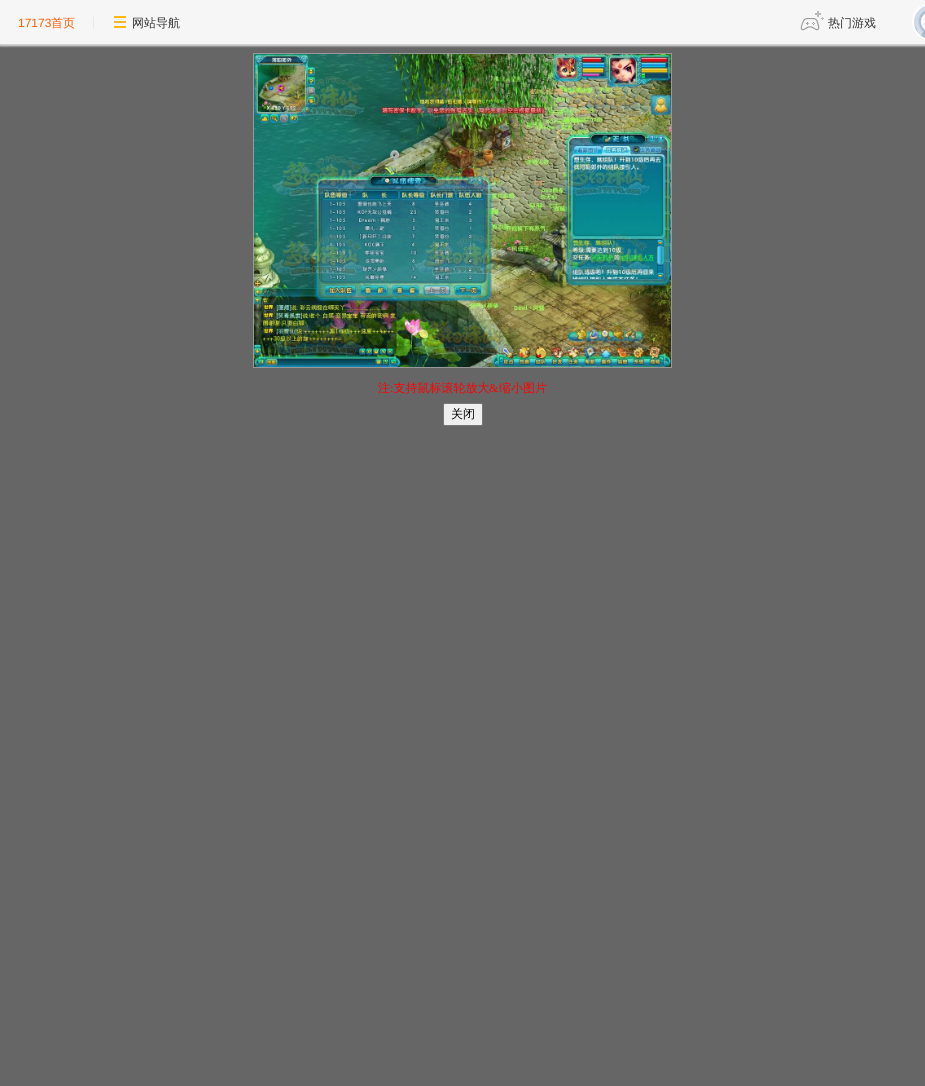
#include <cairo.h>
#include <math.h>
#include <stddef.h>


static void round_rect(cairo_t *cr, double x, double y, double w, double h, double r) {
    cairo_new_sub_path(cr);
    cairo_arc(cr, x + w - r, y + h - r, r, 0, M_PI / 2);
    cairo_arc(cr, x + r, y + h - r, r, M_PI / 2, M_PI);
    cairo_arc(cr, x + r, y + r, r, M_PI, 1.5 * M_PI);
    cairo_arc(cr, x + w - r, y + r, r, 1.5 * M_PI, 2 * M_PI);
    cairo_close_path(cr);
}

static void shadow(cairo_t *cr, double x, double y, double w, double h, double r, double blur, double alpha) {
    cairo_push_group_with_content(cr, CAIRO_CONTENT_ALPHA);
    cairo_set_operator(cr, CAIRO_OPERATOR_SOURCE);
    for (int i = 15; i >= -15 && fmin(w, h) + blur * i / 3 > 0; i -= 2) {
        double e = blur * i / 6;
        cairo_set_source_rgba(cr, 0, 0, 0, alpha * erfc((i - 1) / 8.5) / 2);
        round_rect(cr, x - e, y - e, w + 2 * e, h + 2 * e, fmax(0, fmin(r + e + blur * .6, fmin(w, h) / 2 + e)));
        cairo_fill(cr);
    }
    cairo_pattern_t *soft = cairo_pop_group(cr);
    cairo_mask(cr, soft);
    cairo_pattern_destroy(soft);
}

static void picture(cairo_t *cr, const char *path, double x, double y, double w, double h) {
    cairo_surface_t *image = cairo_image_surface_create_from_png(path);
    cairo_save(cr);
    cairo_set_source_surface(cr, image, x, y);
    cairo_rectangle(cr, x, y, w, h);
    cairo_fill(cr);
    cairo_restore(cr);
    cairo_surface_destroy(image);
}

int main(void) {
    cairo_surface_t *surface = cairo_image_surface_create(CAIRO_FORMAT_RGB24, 925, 1086);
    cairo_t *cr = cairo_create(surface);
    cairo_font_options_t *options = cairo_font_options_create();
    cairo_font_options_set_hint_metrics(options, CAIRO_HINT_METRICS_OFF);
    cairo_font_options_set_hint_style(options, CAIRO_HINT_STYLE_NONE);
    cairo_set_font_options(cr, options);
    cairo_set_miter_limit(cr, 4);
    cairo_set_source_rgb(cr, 0.4, 0.4, 0.4);
    cairo_paint(cr);
    cairo_set_source_rgb(cr, 0.91, 0.902, 0.902);
    shadow(cr, 0, 1, 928, 45, 0, 1, 1);
    cairo_set_source_rgb(cr, 0.961, 0.961, 0.961);
    cairo_rectangle(cr, 0, 0, 925, 44);
    cairo_fill(cr);
    cairo_set_source_rgb(cr, 0.824, 0.824, 0.824);
    cairo_rectangle(cr, 0, 44, 925, 1);
    cairo_fill(cr);
    cairo_select_font_face(cr, "Liberation Sans", CAIRO_FONT_SLANT_NORMAL, CAIRO_FONT_WEIGHT_NORMAL);
    cairo_set_font_size(cr, 12);
    cairo_set_source_rgb(cr, 1, 0.361, 0);
    cairo_move_to(cr, 18, 27);
    cairo_show_text(cr, "17173");
    cairo_select_font_face(cr, "WenQuanYi Zen Hei Medium", CAIRO_FONT_SLANT_NORMAL, CAIRO_FONT_WEIGHT_NORMAL);
    cairo_move_to(cr, 51, 27);
    cairo_show_text(cr, "首页");
    cairo_set_source_rgb(cr, 0.91, 0.91, 0.91);
    cairo_rectangle(cr, 93, 17, 1, 12);
    cairo_fill(cr);
    picture(cr, "img1.png", 114, 16, 12, 12);
    cairo_set_source_rgb(cr, 0.2, 0.2, 0.2);
    cairo_move_to(cr, 132, 27);
    cairo_show_text(cr, "网站导航");
    picture(cr, "img2.png", 800, 11, 24, 20);
    cairo_move_to(cr, 828, 27);
    cairo_show_text(cr, "热门游戏");
    round_rect(cr, 913, 4, 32, 36, 18);
    cairo_set_source_rgb(cr, 1, 1, 1);
    cairo_stroke(cr);
    picture(cr, "img3.png", 914, 6, 11, 32);
    cairo_rectangle(cr, 253.5, 53.5, 418, 314);
    cairo_set_source_rgb(cr, 0.6, 0.6, 0.6);
    cairo_set_line_width(cr, 1);
    cairo_stroke(cr);
    picture(cr, "img4.png", 254, 54, 417, 313);
    cairo_set_source_rgb(cr, 1, 0, 0);
    cairo_move_to(cr, 378, 392);
    cairo_show_text(cr, "注 支持鼠标滚轮放大");
    cairo_select_font_face(cr, "Liberation Serif", CAIRO_FONT_SLANT_NORMAL, CAIRO_FONT_WEIGHT_NORMAL);
    cairo_move_to(cr, 489, 392);
    cairo_show_text(cr, "&");
    cairo_select_font_face(cr, "WenQuanYi Zen Hei Medium", CAIRO_FONT_SLANT_NORMAL, CAIRO_FONT_WEIGHT_NORMAL);
    cairo_move_to(cr, 499, 392);
    cairo_show_text(cr, "缩小图片");
    cairo_select_font_face(cr, "Liberation Serif", CAIRO_FONT_SLANT_NORMAL, CAIRO_FONT_WEIGHT_NORMAL);
    cairo_move_to(cr, 390, 392);
    cairo_show_text(cr, ":");
    cairo_set_source_rgb(cr, 0.937, 0.937, 0.937);
    round_rect(cr, 443.5, 403.5, 39, 22, 1.5);
    cairo_fill_preserve(cr);
    cairo_set_source_rgb(cr, 0.463, 0.463, 0.463);
    cairo_stroke(cr);
    cairo_select_font_face(cr, "WenQuanYi Zen Hei Medium", CAIRO_FONT_SLANT_NORMAL, CAIRO_FONT_WEIGHT_NORMAL);
    cairo_set_source_rgb(cr, 0, 0, 0);
    cairo_move_to(cr, 451, 418);
    cairo_show_text(cr, "关闭");
    cairo_surface_write_to_png(surface, "page.png");
    cairo_font_options_destroy(options);
    cairo_destroy(cr);
    cairo_surface_destroy(surface);
    return 0;
}
